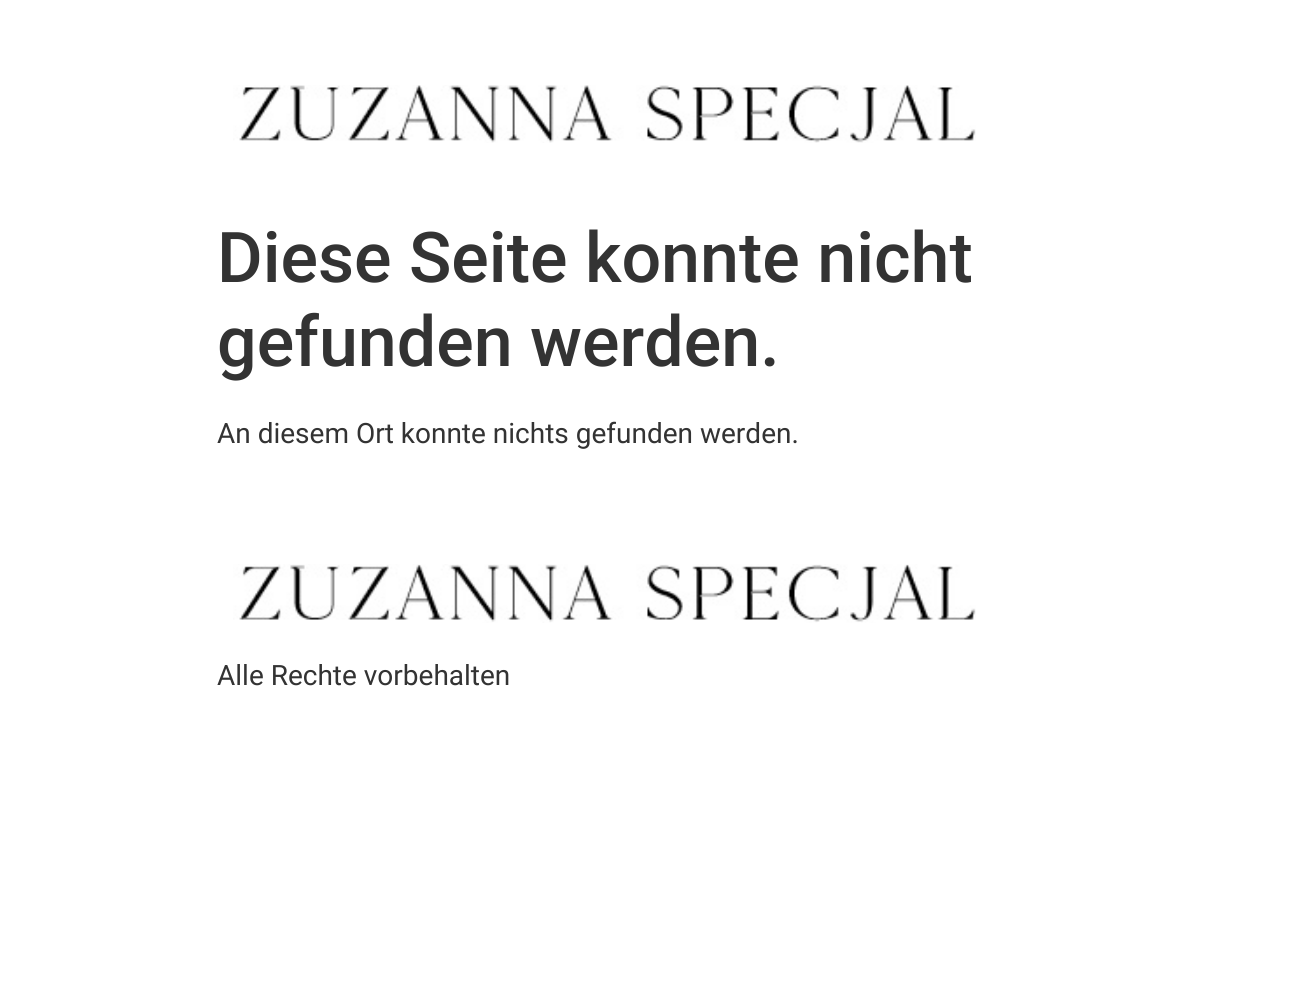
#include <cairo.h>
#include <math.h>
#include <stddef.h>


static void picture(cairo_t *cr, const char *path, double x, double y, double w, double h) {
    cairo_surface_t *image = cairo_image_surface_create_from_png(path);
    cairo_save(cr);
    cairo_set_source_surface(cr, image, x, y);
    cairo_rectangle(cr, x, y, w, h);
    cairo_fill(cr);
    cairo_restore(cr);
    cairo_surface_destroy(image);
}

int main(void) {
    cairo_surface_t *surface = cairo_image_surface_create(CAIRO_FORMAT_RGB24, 1309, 996);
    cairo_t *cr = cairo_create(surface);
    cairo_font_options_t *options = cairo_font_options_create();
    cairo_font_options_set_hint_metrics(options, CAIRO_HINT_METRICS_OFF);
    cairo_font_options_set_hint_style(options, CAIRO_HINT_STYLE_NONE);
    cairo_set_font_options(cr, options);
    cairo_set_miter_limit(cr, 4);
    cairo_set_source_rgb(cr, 1, 1, 1);
    cairo_paint(cr);
    picture(cr, "img1.png", 233, 85, 743, 58);
    cairo_select_font_face(cr, "Roboto Medium", CAIRO_FONT_SLANT_NORMAL, CAIRO_FONT_WEIGHT_NORMAL);
    cairo_set_font_size(cr, 70);
    cairo_set_source_rgb(cr, 0.2, 0.2, 0.2);
    cairo_move_to(cr, 217, 282);
    cairo_show_text(cr, "Diese Seite konnte nicht");
    cairo_move_to(cr, 217, 366);
    cairo_show_text(cr, "gefunden werden.");
    cairo_select_font_face(cr, "Roboto", CAIRO_FONT_SLANT_NORMAL, CAIRO_FONT_WEIGHT_NORMAL);
    cairo_set_font_size(cr, 28);
    cairo_move_to(cr, 217, 443);
    cairo_show_text(cr, "An diesem Ort konnte nichts gefunden werden.");
    picture(cr, "img2.png", 233, 564, 743, 59);
    cairo_move_to(cr, 217, 685);
    cairo_show_text(cr, "Alle Rechte vorbehalten");
    cairo_surface_write_to_png(surface, "page.png");
    cairo_font_options_destroy(options);
    cairo_destroy(cr);
    cairo_surface_destroy(surface);
    return 0;
}
